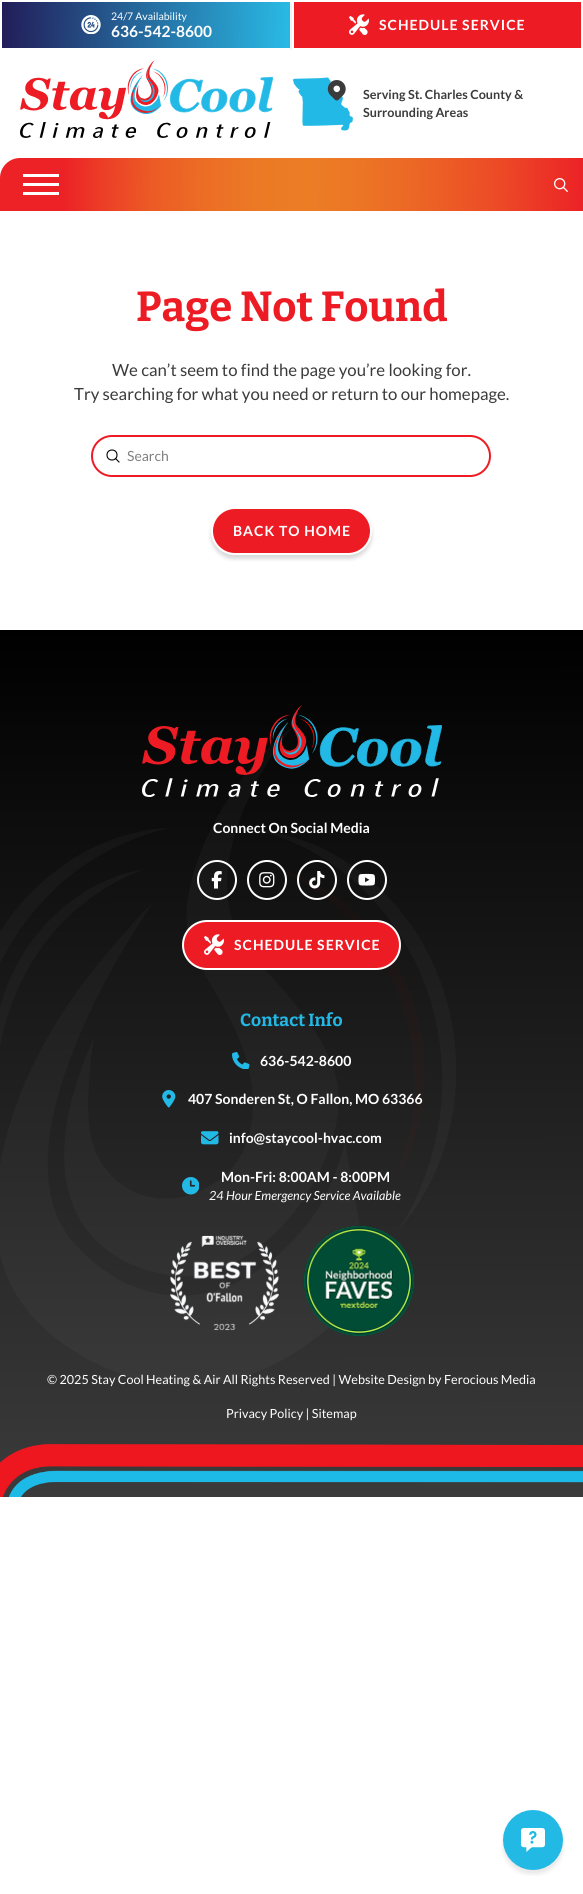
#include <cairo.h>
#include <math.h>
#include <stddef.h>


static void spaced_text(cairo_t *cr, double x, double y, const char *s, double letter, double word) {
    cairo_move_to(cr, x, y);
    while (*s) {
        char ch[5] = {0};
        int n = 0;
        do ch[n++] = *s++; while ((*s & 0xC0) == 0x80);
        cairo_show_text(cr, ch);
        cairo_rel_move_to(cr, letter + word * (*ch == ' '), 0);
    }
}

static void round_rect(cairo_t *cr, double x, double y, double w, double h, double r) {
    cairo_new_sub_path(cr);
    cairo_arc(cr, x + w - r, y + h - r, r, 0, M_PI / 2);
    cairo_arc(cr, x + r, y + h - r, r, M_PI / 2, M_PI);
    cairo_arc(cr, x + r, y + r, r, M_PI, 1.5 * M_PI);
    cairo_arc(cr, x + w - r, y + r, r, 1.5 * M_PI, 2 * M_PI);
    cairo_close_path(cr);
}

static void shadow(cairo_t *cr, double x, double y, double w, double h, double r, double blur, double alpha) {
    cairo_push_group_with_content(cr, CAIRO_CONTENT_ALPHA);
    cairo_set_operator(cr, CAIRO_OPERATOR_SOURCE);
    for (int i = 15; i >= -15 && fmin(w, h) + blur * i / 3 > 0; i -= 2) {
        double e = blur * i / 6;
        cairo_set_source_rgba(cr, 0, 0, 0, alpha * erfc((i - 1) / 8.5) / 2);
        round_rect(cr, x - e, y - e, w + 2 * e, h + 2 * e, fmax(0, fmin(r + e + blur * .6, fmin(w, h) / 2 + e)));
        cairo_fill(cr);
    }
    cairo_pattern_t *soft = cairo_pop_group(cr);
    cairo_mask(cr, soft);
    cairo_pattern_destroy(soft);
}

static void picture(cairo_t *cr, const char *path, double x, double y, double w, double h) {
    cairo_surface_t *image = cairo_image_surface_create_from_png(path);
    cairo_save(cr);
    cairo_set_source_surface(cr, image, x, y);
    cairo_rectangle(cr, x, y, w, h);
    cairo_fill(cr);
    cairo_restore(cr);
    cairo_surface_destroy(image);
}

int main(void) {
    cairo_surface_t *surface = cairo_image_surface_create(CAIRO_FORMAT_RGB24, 583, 1894);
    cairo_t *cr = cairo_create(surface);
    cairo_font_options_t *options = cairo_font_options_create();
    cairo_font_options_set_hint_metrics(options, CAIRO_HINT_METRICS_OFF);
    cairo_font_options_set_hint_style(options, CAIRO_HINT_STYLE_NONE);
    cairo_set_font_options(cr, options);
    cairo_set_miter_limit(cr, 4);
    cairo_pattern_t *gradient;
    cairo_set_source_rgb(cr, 1, 1, 1);
    cairo_paint(cr);
    gradient = cairo_pattern_create_linear(290, 28, 1.6, 22);
    cairo_pattern_add_color_stop_rgba(gradient, 0, 0.161, 0.729, 0.898, 1);
    cairo_pattern_add_color_stop_rgba(gradient, 1, 0.133, 0.114, 0.349, 1);
    cairo_set_source(cr, gradient);
    cairo_pattern_destroy(gradient);
    cairo_rectangle(cr, 2, 2, 288, 46);
    cairo_fill(cr);
    picture(cr, "img1.png", 81, 15, 20, 19);
    cairo_select_font_face(cr, "Lato", CAIRO_FONT_SLANT_NORMAL, CAIRO_FONT_WEIGHT_NORMAL);
    cairo_set_font_size(cr, 10.5);
    cairo_set_source_rgb(cr, 1, 1, 1);
    cairo_move_to(cr, 111, 20);
    cairo_show_text(cr, "24/7 Availability");
    cairo_select_font_face(cr, "Lato", CAIRO_FONT_SLANT_NORMAL, CAIRO_FONT_WEIGHT_BOLD);
    cairo_set_font_size(cr, 15.5);
    cairo_move_to(cr, 111, 37);
    cairo_show_text(cr, "636-542-8600");
    cairo_set_source_rgb(cr, 0, 0, 0);
    shadow(cr, 292, 4, 291, 50, 0, 2, 0.15);
    cairo_set_source_rgb(cr, 0.929, 0.11, 0.141);
    cairo_rectangle(cr, 293, 1, 289, 48);
    cairo_fill_preserve(cr);
    cairo_set_source_rgb(cr, 1, 1, 1);
    cairo_stroke(cr);
    picture(cr, "img2.png", 349, 14, 20, 21);
    cairo_set_font_size(cr, 14);
    spaced_text(cr, 379, 30, "SCHEDULE SERVICE", 1, 0);
    cairo_rectangle(cr, 289, 50, 294, 7);
    cairo_fill(cr);
    picture(cr, "img3.png", 20, 60, 253, 78);
    picture(cr, "img4.png", 293, 77, 60, 54);
    cairo_set_font_size(cr, 12.6);
    cairo_set_source_rgb(cr, 0.231, 0.231, 0.231);
    cairo_move_to(cr, 363, 99);
    cairo_show_text(cr, "Serving St. Charles County &");
    cairo_move_to(cr, 363, 117);
    cairo_show_text(cr, "Surrounding Areas");
    gradient = cairo_pattern_create_linear(583, 190, -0.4, 179);
    cairo_pattern_add_color_stop_rgba(gradient, 0, 0.925, 0.133, 0.149, 1);
    cairo_pattern_add_color_stop_rgba(gradient, 0.14, 0.925, 0.286, 0.149, 1);
    cairo_pattern_add_color_stop_rgba(gradient, 0.28, 0.925, 0.396, 0.145, 1);
    cairo_pattern_add_color_stop_rgba(gradient, 0.39, 0.925, 0.463, 0.145, 1);
    cairo_pattern_add_color_stop_rgba(gradient, 0.47, 0.925, 0.49, 0.145, 1);
    cairo_pattern_add_color_stop_rgba(gradient, 0.56, 0.925, 0.475, 0.145, 1);
    cairo_pattern_add_color_stop_rgba(gradient, 0.65, 0.925, 0.427, 0.145, 1);
    cairo_pattern_add_color_stop_rgba(gradient, 0.74, 0.925, 0.353, 0.145, 1);
    cairo_pattern_add_color_stop_rgba(gradient, 0.82, 0.925, 0.247, 0.149, 1);
    cairo_pattern_add_color_stop_rgba(gradient, 0.89, 0.925, 0.133, 0.153, 1);
    cairo_set_source(cr, gradient);
    cairo_pattern_destroy(gradient);
    cairo_new_path(cr);
    cairo_move_to(cr, 20, 158);
    cairo_line_to(cr, 583, 158);
    cairo_line_to(cr, 583, 211);
    cairo_line_to(cr, 0, 211);
    cairo_line_to(cr, 0, 178);
    cairo_curve_to(cr, 0, 167, 9, 158, 20, 158);
    cairo_close_path(cr);
    cairo_fill(cr);
    cairo_set_source_rgb(cr, 1, 1, 1);
    cairo_rectangle(cr, 23, 174, 36, 3);
    cairo_fill(cr);
    cairo_rectangle(cr, 23, 183, 36, 3);
    cairo_fill(cr);
    cairo_rectangle(cr, 23, 192, 36, 3);
    cairo_fill(cr);
    picture(cr, "img5.png", 554, 178, 14, 14);
    cairo_select_font_face(cr, "Bitter", CAIRO_FONT_SLANT_NORMAL, CAIRO_FONT_WEIGHT_BOLD);
    cairo_set_font_size(cr, 42);
    cairo_set_source_rgb(cr, 0.929, 0.11, 0.141);
    cairo_move_to(cr, 136, 321);
    cairo_show_text(cr, "Page Not Found");
    cairo_select_font_face(cr, "Lato", CAIRO_FONT_SLANT_NORMAL, CAIRO_FONT_WEIGHT_NORMAL);
    cairo_set_font_size(cr, 16.8);
    cairo_set_source_rgb(cr, 0.231, 0.231, 0.231);
    cairo_move_to(cr, 112, 376);
    cairo_show_text(cr, "We can’t seem to find the page you’re looking for.");
    cairo_move_to(cr, 74, 400);
    cairo_show_text(cr, "Try searching for what you need or return to our homepage.");
    round_rect(cr, 92, 436, 398, 40, 20);
    cairo_set_source_rgb(cr, 0.929, 0.11, 0.141);
    cairo_stroke(cr);
    cairo_arc(cr, 112, 455, 5, 0, 2 * M_PI);
    cairo_set_source_rgb(cr, 0, 0, 0);
    cairo_set_line_width(cr, 1.1);
    cairo_stroke(cr);
    cairo_new_path(cr);
    cairo_move_to(cr, 119, 462);
    cairo_line_to(cr, 115.5, 458.5);
    cairo_set_line_cap(cr, CAIRO_LINE_CAP_SQUARE);
    cairo_stroke(cr);
    cairo_set_font_size(cr, 14);
    cairo_set_source_rgb(cr, 0.502, 0.502, 0.502);
    cairo_move_to(cr, 127, 461);
    cairo_show_text(cr, "Search");
    cairo_set_source_rgb(cr, 0, 0, 0);
    shadow(cr, 211, 511, 161, 48, 24, 2, 0.15);
    cairo_set_source_rgb(cr, 0.929, 0.11, 0.141);
    round_rect(cr, 212, 508, 159, 46, 23);
    cairo_fill_preserve(cr);
    cairo_set_source_rgb(cr, 1, 1, 1);
    cairo_set_line_width(cr, 2);
    cairo_set_line_cap(cr, CAIRO_LINE_CAP_BUTT);
    cairo_stroke(cr);
    cairo_select_font_face(cr, "Lato", CAIRO_FONT_SLANT_NORMAL, CAIRO_FONT_WEIGHT_BOLD);
    spaced_text(cr, 233, 536, "BACK TO HOME", 1, 0);
    gradient = cairo_pattern_create_linear(291, 630, 292, 1497);
    cairo_pattern_add_color_stop_rgba(gradient, 0, 0, 0, 0, 1);
    cairo_pattern_add_color_stop_rgba(gradient, 1, 0.231, 0.231, 0.231, 1);
    cairo_set_source(cr, gradient);
    cairo_pattern_destroy(gradient);
    cairo_rectangle(cr, 0, 630, 583, 867);
    cairo_fill(cr);
    picture(cr, "img6.png", 0, 729, 456, 656);
    picture(cr, "img7.png", 142, 705, 300, 92);
    cairo_set_source_rgb(cr, 1, 1, 1);
    cairo_move_to(cr, 213, 833);
    cairo_show_text(cr, "Connect On Social Media");
    cairo_new_path(cr);
    cairo_arc(cr, 217, 880, 19, 0, 2 * M_PI);
    cairo_stroke(cr);
    picture(cr, "img8.png", 211, 871, 11, 18);
    cairo_arc(cr, 267, 880, 19, 0, 2 * M_PI);
    cairo_stroke(cr);
    picture(cr, "img9.png", 259, 872, 16, 16);
    cairo_arc(cr, 317, 880, 19, 0, 2 * M_PI);
    cairo_stroke(cr);
    picture(cr, "img10.png", 309, 871, 16, 18);
    cairo_arc(cr, 367, 880, 19, 0, 2 * M_PI);
    cairo_stroke(cr);
    picture(cr, "img11.png", 358, 873, 17, 13);
    cairo_set_source_rgb(cr, 0.929, 0.11, 0.141);
    round_rect(cr, 183, 921, 217, 48, 24);
    cairo_fill_preserve(cr);
    cairo_set_source_rgb(cr, 1, 1, 1);
    cairo_stroke(cr);
    picture(cr, "img2.png", 204, 934, 20, 21);
    spaced_text(cr, 234, 950, "SCHEDULE SERVICE", 1, 0);
    cairo_select_font_face(cr, "Bitter", CAIRO_FONT_SLANT_NORMAL, CAIRO_FONT_WEIGHT_BOLD);
    cairo_set_font_size(cr, 17.5);
    cairo_set_source_rgb(cr, 0.137, 0.725, 0.902);
    cairo_move_to(cr, 240, 1026);
    cairo_show_text(cr, "Contact Info");
    picture(cr, "img12.png", 232, 1052, 18, 17);
    cairo_select_font_face(cr, "Lato", CAIRO_FONT_SLANT_NORMAL, CAIRO_FONT_WEIGHT_BOLD);
    cairo_set_font_size(cr, 14);
    cairo_set_source_rgb(cr, 1, 1, 1);
    cairo_move_to(cr, 260, 1066);
    cairo_show_text(cr, "636-542-8600");
    picture(cr, "img13.png", 162, 1090, 14, 18);
    cairo_move_to(cr, 188, 1104);
    cairo_show_text(cr, "407 Sonderen St, O Fallon, MO 63366");
    picture(cr, "img14.png", 201, 1131, 18, 14);
    cairo_move_to(cr, 229, 1143);
    cairo_show_text(cr, "info@staycool-hvac.com");
    picture(cr, "img15.png", 182, 1177, 17, 18);
    cairo_move_to(cr, 221, 1182);
    cairo_show_text(cr, "Mon-Fri: 8:00AM - 8:00PM");
    cairo_select_font_face(cr, "Lato", CAIRO_FONT_SLANT_ITALIC, CAIRO_FONT_WEIGHT_NORMAL);
    cairo_set_font_size(cr, 12.6);
    cairo_move_to(cr, 209, 1200);
    cairo_show_text(cr, "24 Hour Emergency Service Available");
    picture(cr, "img16.png", 170, 1235, 109, 96);
    picture(cr, "img17.png", 303, 1225, 111, 111);
    cairo_select_font_face(cr, "Lato", CAIRO_FONT_SLANT_NORMAL, CAIRO_FONT_WEIGHT_NORMAL);
    cairo_move_to(cr, 47, 1384);
    cairo_show_text(cr, "© 2025 Stay Cool Heating & Air All Rights Reserved | Website Design by Ferocious Media");
    cairo_move_to(cr, 226, 1418);
    cairo_show_text(cr, "Privacy Policy | Sitemap");
    picture(cr, "img18.png", 0, 1443, 583, 54);
    picture(cr, "img19.png", 501, 1810, 64, 66);
    cairo_surface_write_to_png(surface, "page.png");
    cairo_font_options_destroy(options);
    cairo_destroy(cr);
    cairo_surface_destroy(surface);
    return 0;
}
